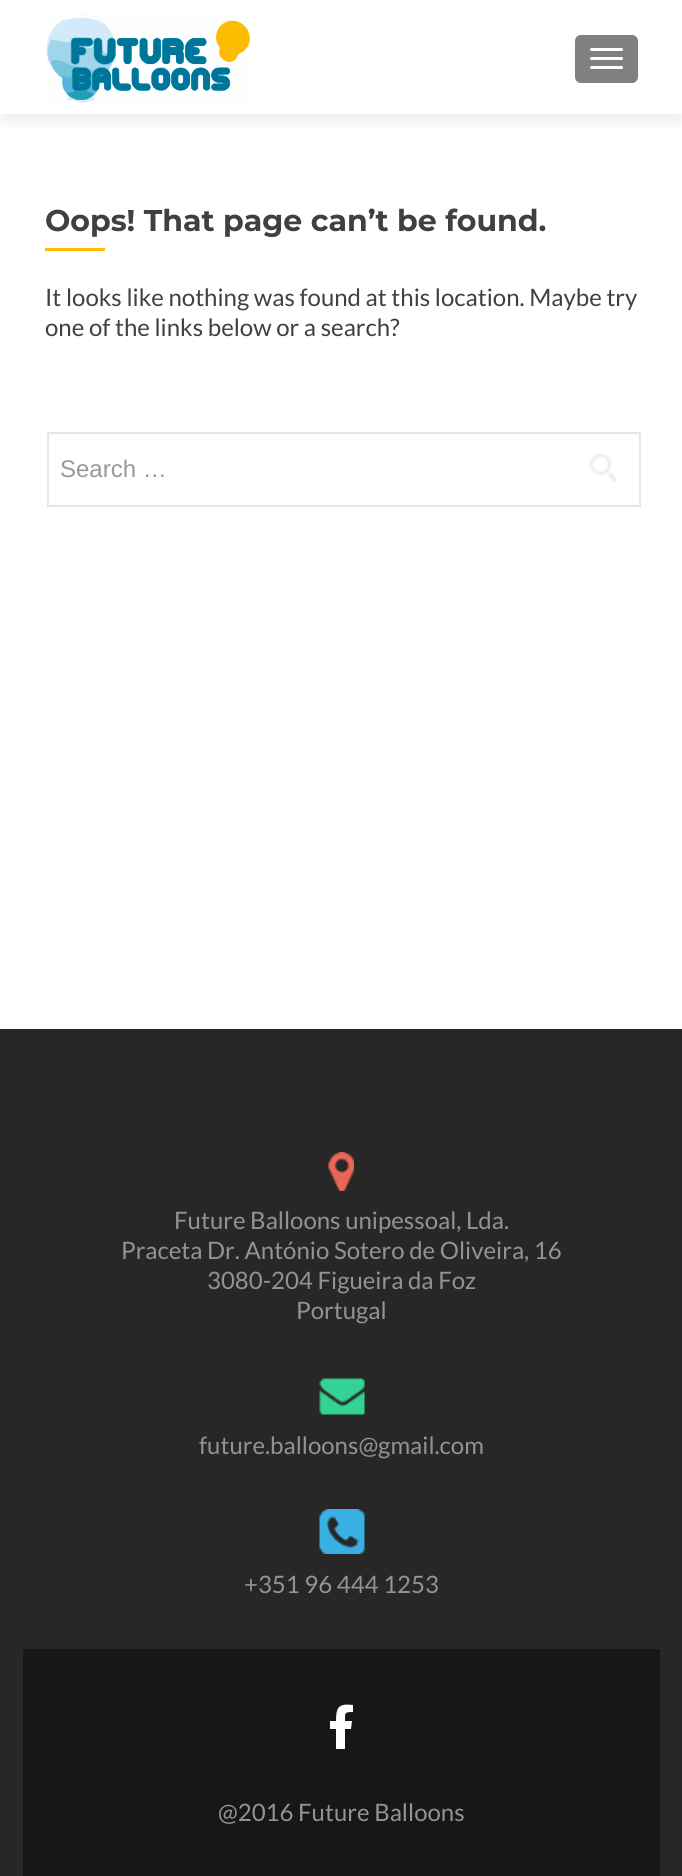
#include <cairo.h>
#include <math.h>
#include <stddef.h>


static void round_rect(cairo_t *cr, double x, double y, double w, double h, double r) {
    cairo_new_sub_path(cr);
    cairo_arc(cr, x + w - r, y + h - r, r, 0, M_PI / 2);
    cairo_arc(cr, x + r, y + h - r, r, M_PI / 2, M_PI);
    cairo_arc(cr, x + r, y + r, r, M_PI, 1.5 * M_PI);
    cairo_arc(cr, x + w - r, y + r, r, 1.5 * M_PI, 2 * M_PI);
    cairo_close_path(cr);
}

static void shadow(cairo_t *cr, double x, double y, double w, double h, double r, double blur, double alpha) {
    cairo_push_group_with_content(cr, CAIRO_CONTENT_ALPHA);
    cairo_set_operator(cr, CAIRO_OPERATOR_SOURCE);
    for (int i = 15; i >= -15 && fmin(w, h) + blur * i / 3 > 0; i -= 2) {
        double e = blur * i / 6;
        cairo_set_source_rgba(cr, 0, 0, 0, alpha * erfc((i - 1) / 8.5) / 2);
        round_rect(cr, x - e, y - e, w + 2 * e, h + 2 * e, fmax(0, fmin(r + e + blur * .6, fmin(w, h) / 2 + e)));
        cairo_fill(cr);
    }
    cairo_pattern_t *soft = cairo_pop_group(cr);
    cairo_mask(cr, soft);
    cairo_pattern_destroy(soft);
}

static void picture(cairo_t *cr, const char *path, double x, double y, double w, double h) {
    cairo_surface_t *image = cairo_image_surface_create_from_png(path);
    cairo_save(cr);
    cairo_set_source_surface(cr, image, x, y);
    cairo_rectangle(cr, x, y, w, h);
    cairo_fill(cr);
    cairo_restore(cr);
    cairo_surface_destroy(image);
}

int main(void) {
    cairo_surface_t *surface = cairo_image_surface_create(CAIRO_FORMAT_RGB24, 682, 1876);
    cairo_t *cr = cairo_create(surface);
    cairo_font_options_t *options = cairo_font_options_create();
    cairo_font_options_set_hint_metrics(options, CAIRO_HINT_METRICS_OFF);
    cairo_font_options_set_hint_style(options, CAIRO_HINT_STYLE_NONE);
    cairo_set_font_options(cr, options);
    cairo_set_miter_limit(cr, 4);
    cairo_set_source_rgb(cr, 1, 1, 1);
    cairo_paint(cr);
    cairo_save(cr);
    cairo_rectangle(cr, 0, 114, 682, 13);
    cairo_clip(cr);
    cairo_set_source_rgb(cr, 0.196, 0.196, 0.196);
    shadow(cr, 0, 8, 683, 114, 0, 8, 0.08);
    cairo_restore(cr);
    picture(cr, "img1.png", 46, 14, 204, 89);
    cairo_set_source_rgb(cr, 0.502, 0.502, 0.502);
    round_rect(cr, 575, 35, 63, 48, 6);
    cairo_fill(cr);
    cairo_set_source_rgb(cr, 1, 1, 1);
    round_rect(cr, 590, 48, 33, 3, 1.5);
    cairo_fill(cr);
    round_rect(cr, 590, 57, 33, 3, 1.5);
    cairo_fill(cr);
    round_rect(cr, 590, 66, 33, 3, 1.5);
    cairo_fill(cr);
    cairo_select_font_face(cr, "Montserrat Thin", CAIRO_FONT_SLANT_NORMAL, CAIRO_FONT_WEIGHT_NORMAL);
    cairo_set_font_size(cr, 30);
    cairo_set_source_rgb(cr, 0.251, 0.251, 0.251);
    cairo_move_to(cr, 45, 231);
    cairo_show_text(cr, "Oops! That page can’t be found.");
    cairo_set_source_rgb(cr, 1, 0.745, 0);
    cairo_rectangle(cr, 45, 248, 60, 3);
    cairo_fill(cr);
    cairo_select_font_face(cr, "Lato", CAIRO_FONT_SLANT_NORMAL, CAIRO_FONT_WEIGHT_NORMAL);
    cairo_set_font_size(cr, 24);
    cairo_set_source_rgb(cr, 0.251, 0.251, 0.251);
    cairo_move_to(cr, 45, 306);
    cairo_show_text(cr, "It looks like nothing was found at this location. Maybe try");
    cairo_move_to(cr, 45, 336);
    cairo_show_text(cr, "one of the links below or a search?");
    cairo_set_source_rgb(cr, 0.949, 0.949, 0.949);
    cairo_rectangle(cr, 23, 432, 2, 2);
    cairo_fill(cr);
    cairo_rectangle(cr, 48, 433, 592, 73);
    cairo_set_source_rgb(cr, 0.902, 0.902, 0.902);
    cairo_stroke(cr);
    cairo_select_font_face(cr, "Liberation Sans", CAIRO_FONT_SLANT_NORMAL, CAIRO_FONT_WEIGHT_NORMAL);
    cairo_set_source_rgb(cr, 0.6, 0.6, 0.6);
    cairo_move_to(cr, 60, 477);
    cairo_show_text(cr, "Search …");
    picture(cr, "img2.png", 589, 453, 28, 29);
    cairo_set_source_rgb(cr, 0.153, 0.153, 0.153);
    cairo_rectangle(cr, 0, 1029, 682, 847);
    cairo_fill(cr);
    picture(cr, "img3.png", 328, 1152, 26, 39);
    cairo_select_font_face(cr, "Lato", CAIRO_FONT_SLANT_NORMAL, CAIRO_FONT_WEIGHT_NORMAL);
    cairo_set_source_rgb(cr, 0.576, 0.576, 0.576);
    cairo_move_to(cr, 174, 1229);
    cairo_show_text(cr, "Future Balloons unipessoal, Lda.");
    cairo_move_to(cr, 121, 1259);
    cairo_show_text(cr, "Praceta Dr. António Sotero de Oliveira, 16");
    cairo_move_to(cr, 207, 1289);
    cairo_show_text(cr, "3080-204 Figueira da Foz");
    cairo_move_to(cr, 296, 1319);
    cairo_show_text(cr, "Portugal");
    picture(cr, "img4.png", 319, 1378, 46, 37);
    cairo_move_to(cr, 199, 1454);
    cairo_show_text(cr, "future.balloons@gmail.com");
    picture(cr, "img5.png", 319, 1509, 46, 45);
    cairo_move_to(cr, 244, 1593);
    cairo_show_text(cr, "+351 96 444 1253");
    cairo_set_source_rgb(cr, 0.09, 0.09, 0.09);
    cairo_rectangle(cr, 23, 1649, 637, 227);
    cairo_fill(cr);
    cairo_set_source_rgb(cr, 1, 1, 1);
    cairo_new_path(cr);
    cairo_move_to(cr, 353, 1705);
    cairo_line_to(cr, 353, 1712);
    cairo_curve_to(cr, 344, 1712, 345, 1713, 345, 1721);
    cairo_line_to(cr, 352, 1721);
    cairo_line_to(cr, 351, 1729);
    cairo_line_to(cr, 345, 1729);
    cairo_line_to(cr, 345, 1749);
    cairo_line_to(cr, 336, 1749);
    cairo_line_to(cr, 336, 1729);
    cairo_line_to(cr, 330, 1729);
    cairo_line_to(cr, 330, 1721);
    cairo_line_to(cr, 336, 1721);
    cairo_curve_to(cr, 336, 1708, 338, 1703, 353, 1705);
    cairo_close_path(cr);
    cairo_fill(cr);
    cairo_set_source_rgb(cr, 0.576, 0.576, 0.576);
    cairo_move_to(cr, 218, 1821);
    cairo_show_text(cr, "@2016 Future Balloons");
    cairo_surface_write_to_png(surface, "page.png");
    cairo_font_options_destroy(options);
    cairo_destroy(cr);
    cairo_surface_destroy(surface);
    return 0;
}
